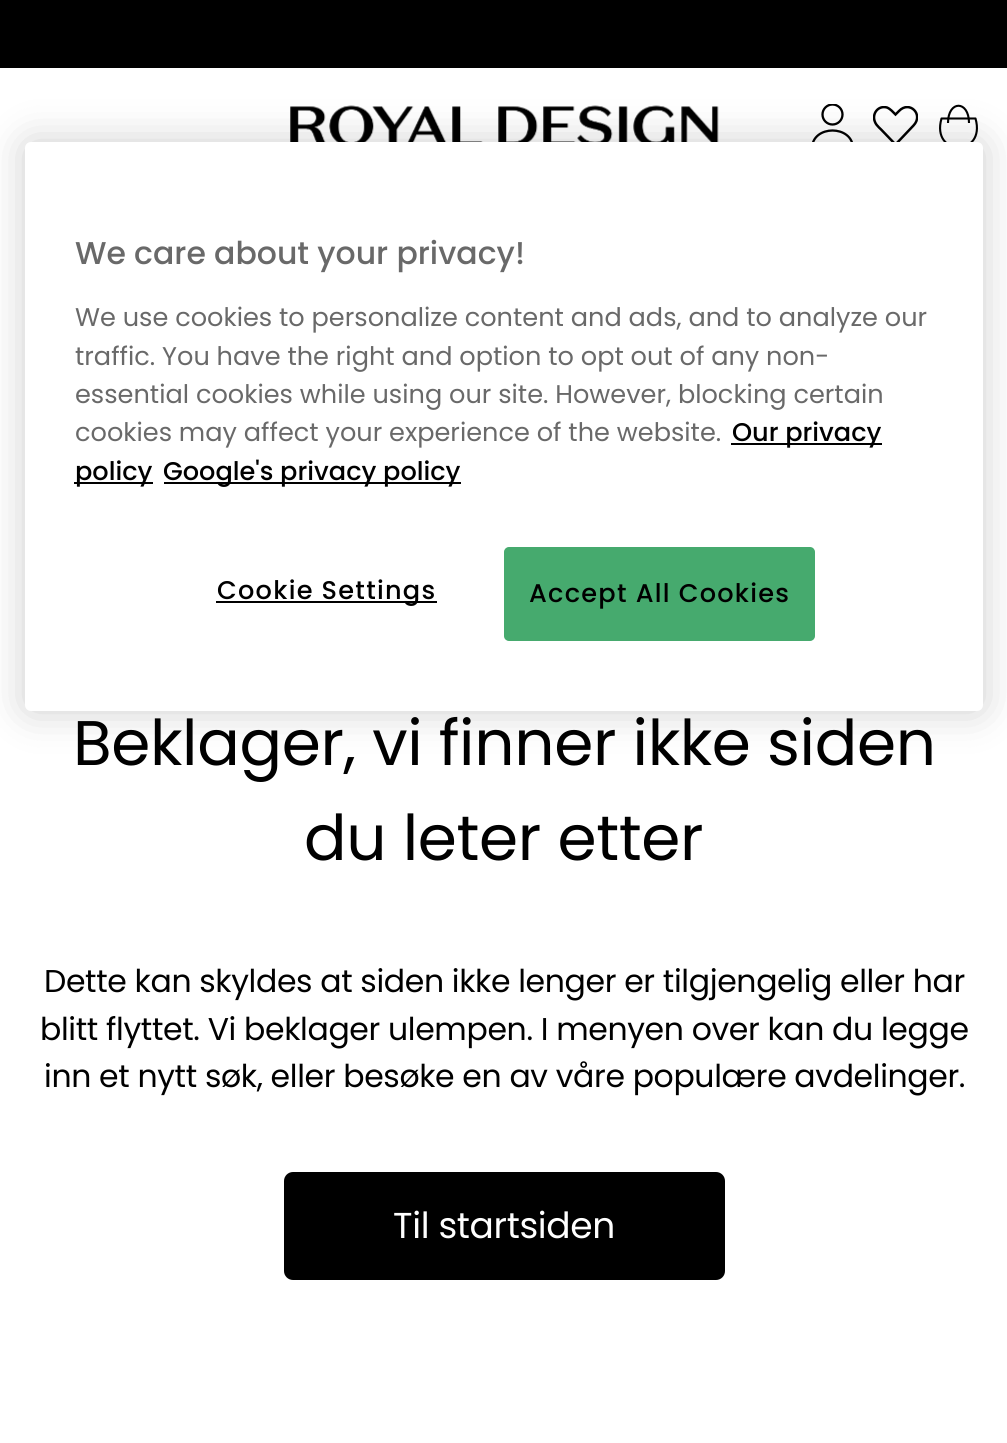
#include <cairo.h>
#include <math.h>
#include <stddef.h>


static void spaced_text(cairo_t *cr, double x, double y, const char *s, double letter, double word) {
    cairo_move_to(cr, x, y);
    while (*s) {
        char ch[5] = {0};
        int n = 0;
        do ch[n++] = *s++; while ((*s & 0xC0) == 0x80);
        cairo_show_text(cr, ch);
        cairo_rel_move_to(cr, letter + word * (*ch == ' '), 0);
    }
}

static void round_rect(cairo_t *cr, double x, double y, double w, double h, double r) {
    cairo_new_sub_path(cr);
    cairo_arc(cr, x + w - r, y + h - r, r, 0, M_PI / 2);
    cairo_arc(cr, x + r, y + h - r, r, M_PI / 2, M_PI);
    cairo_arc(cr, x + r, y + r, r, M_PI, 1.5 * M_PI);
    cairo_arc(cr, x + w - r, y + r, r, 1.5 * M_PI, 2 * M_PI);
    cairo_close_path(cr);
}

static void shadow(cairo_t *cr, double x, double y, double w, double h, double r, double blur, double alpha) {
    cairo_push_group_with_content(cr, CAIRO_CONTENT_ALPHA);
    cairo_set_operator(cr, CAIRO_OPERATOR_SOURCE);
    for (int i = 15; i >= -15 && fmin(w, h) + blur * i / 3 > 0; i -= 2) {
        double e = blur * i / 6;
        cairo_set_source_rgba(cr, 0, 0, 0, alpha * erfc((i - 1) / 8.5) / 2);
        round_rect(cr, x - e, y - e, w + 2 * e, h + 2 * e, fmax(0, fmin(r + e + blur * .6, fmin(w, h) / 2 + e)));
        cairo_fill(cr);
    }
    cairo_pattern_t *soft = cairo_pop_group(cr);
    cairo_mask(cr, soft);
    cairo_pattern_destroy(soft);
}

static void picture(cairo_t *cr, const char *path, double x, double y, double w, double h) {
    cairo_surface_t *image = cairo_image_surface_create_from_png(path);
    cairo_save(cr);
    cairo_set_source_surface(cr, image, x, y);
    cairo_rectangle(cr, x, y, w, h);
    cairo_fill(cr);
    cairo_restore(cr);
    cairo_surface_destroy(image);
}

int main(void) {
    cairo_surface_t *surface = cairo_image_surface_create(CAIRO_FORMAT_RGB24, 1007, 1443);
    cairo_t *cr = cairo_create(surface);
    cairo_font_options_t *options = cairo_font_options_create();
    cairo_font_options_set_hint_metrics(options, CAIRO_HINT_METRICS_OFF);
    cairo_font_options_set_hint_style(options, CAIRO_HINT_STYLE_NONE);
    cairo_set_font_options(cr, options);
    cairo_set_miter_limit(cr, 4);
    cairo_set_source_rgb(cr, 1, 1, 1);
    cairo_paint(cr);
    picture(cr, "img1.png", 290, 105, 429, 37);
    cairo_new_path(cr);
    cairo_move_to(cr, 812, 148.5);
    cairo_curve_to(cr, 812, 124.5, 853, 124.5, 853, 148.5);
    cairo_set_source_rgb(cr, 0, 0, 0);
    cairo_set_line_width(cr, 2.3);
    cairo_stroke(cr);
    cairo_save(cr);
    cairo_rectangle(cr, 810, 104, 45, 45);
    cairo_clip(cr);
    cairo_arc(cr, 832.5, 114.5, 10, 0, 2 * M_PI);
    cairo_stroke(cr);
    cairo_restore(cr);
    cairo_save(cr);
    cairo_rectangle(cr, 873, 106, 45, 40);
    cairo_clip(cr);
    cairo_new_path(cr);
    cairo_move_to(cr, 913.5, 125.5);
    cairo_line_to(cr, 895.5, 144.5);
    cairo_line_to(cr, 883.5, 132);
    cairo_curve_to(cr, 881, 129, 876.5, 126, 875, 122);
    cairo_curve_to(cr, 871.5, 114, 878, 105, 887, 107.5);
    cairo_curve_to(cr, 890.5, 109, 893, 112, 895.5, 114.5);
    cairo_line_to(cr, 899, 111);
    cairo_curve_to(cr, 909.5, 100, 924, 114.5, 913.5, 125.5);
    cairo_close_path(cr);
    cairo_set_line_width(cr, 2.5);
    cairo_stroke(cr);
    cairo_restore(cr);
    cairo_new_path(cr);
    cairo_move_to(cr, 941.5, 118.5);
    cairo_curve_to(cr, 930.5, 157, 986.5, 157, 975.5, 118.5);
    cairo_close_path(cr);
    cairo_set_line_width(cr, 2.1);
    cairo_set_line_join(cr, CAIRO_LINE_JOIN_ROUND);
    cairo_stroke(cr);
    cairo_new_path(cr);
    cairo_move_to(cr, 948, 123);
    cairo_curve_to(cr, 948, 100, 969, 100, 969, 123);
    cairo_set_line_join(cr, CAIRO_LINE_JOIN_MITER);
    cairo_stroke(cr);
    cairo_set_source_rgb(cr, 0, 0, 0);
    shadow(cr, 25, 142, 958, 569, 6, 20, 0.2);
    cairo_set_source_rgb(cr, 1, 1, 1);
    round_rect(cr, 25, 142, 958, 569, 6);
    cairo_fill(cr);
    cairo_select_font_face(cr, "Poppins Medium", CAIRO_FONT_SLANT_NORMAL, CAIRO_FONT_WEIGHT_NORMAL);
    cairo_set_font_size(cr, 31.5);
    cairo_set_source_rgb(cr, 0.412, 0.412, 0.412);
    cairo_move_to(cr, 75, 264);
    cairo_show_text(cr, "We care about your privacy!");
    cairo_select_font_face(cr, "Poppins", CAIRO_FONT_SLANT_NORMAL, CAIRO_FONT_WEIGHT_NORMAL);
    cairo_set_font_size(cr, 25.6);
    cairo_move_to(cr, 75, 326);
    cairo_show_text(cr, "We use cookies to personalize content and ads, and to analyze our");
    cairo_move_to(cr, 75, 365);
    cairo_show_text(cr, "traffic. You have the right and option to opt out of any non-");
    cairo_move_to(cr, 75, 403);
    cairo_show_text(cr, "essential cookies while using our site. However, blocking certain");
    cairo_move_to(cr, 75, 441);
    cairo_show_text(cr, "cookies may affect your experience of the website.");
    cairo_set_source_rgb(cr, 0, 0, 0);
    cairo_rectangle(cr, 731, 443, 151, 2);
    cairo_fill(cr);
    cairo_select_font_face(cr, "Poppins Medium", CAIRO_FONT_SLANT_NORMAL, CAIRO_FONT_WEIGHT_NORMAL);
    cairo_move_to(cr, 732, 441);
    cairo_show_text(cr, "Our privacy");
    cairo_rectangle(cr, 74, 482, 79, 2);
    cairo_fill(cr);
    cairo_move_to(cr, 75, 480);
    cairo_show_text(cr, "policy");
    cairo_rectangle(cr, 164, 482, 297, 2);
    cairo_fill(cr);
    cairo_move_to(cr, 163, 480);
    cairo_show_text(cr, "Google's privacy policy");
    cairo_rectangle(cr, 216, 601, 221, 2);
    cairo_fill(cr);
    spaced_text(cr, 217, 599, "Cookie Settings", 1.25, 0);
    cairo_set_source_rgb(cr, 0.275, 0.667, 0.431);
    round_rect(cr, 505, 548, 309, 92, 4);
    cairo_fill_preserve(cr);
    cairo_set_line_width(cr, 2);
    cairo_stroke(cr);
    cairo_set_source_rgb(cr, 0, 0, 0);
    spaced_text(cr, 529, 602, "Accept All Cookies", 1.25, 0);
    cairo_rectangle(cr, 0, 0, 1007, 68);
    cairo_fill(cr);
    cairo_select_font_face(cr, "Poppins", CAIRO_FONT_SLANT_NORMAL, CAIRO_FONT_WEIGHT_NORMAL);
    cairo_set_font_size(cr, 63);
    spaced_text(cr, 73, 765, "Beklager, vi finner ikke siden", -0.35, 0);
    spaced_text(cr, 304, 860, "du leter etter", -0.35, 0);
    cairo_set_font_size(cr, 31.5);
    spaced_text(cr, 44, 992, "Dette kan skyldes at siden ikke lenger er tilgjengelig eller har", -0.35, 0);
    spaced_text(cr, 40, 1040, "blitt flyttet. Vi beklager ulempen. I menyen over kan du legge", -0.35, 0);
    spaced_text(cr, 44, 1087, "inn et nytt søk, eller besøke en av våre populære avdelinger.", -0.35, 0);
    round_rect(cr, 284, 1172, 441, 108, 9);
    cairo_fill(cr);
    cairo_set_font_size(cr, 36);
    cairo_set_source_rgb(cr, 1, 1, 1);
    spaced_text(cr, 393, 1238, "Til startsiden", -0.35, 0);
    cairo_surface_write_to_png(surface, "page.png");
    cairo_font_options_destroy(options);
    cairo_destroy(cr);
    cairo_surface_destroy(surface);
    return 0;
}
